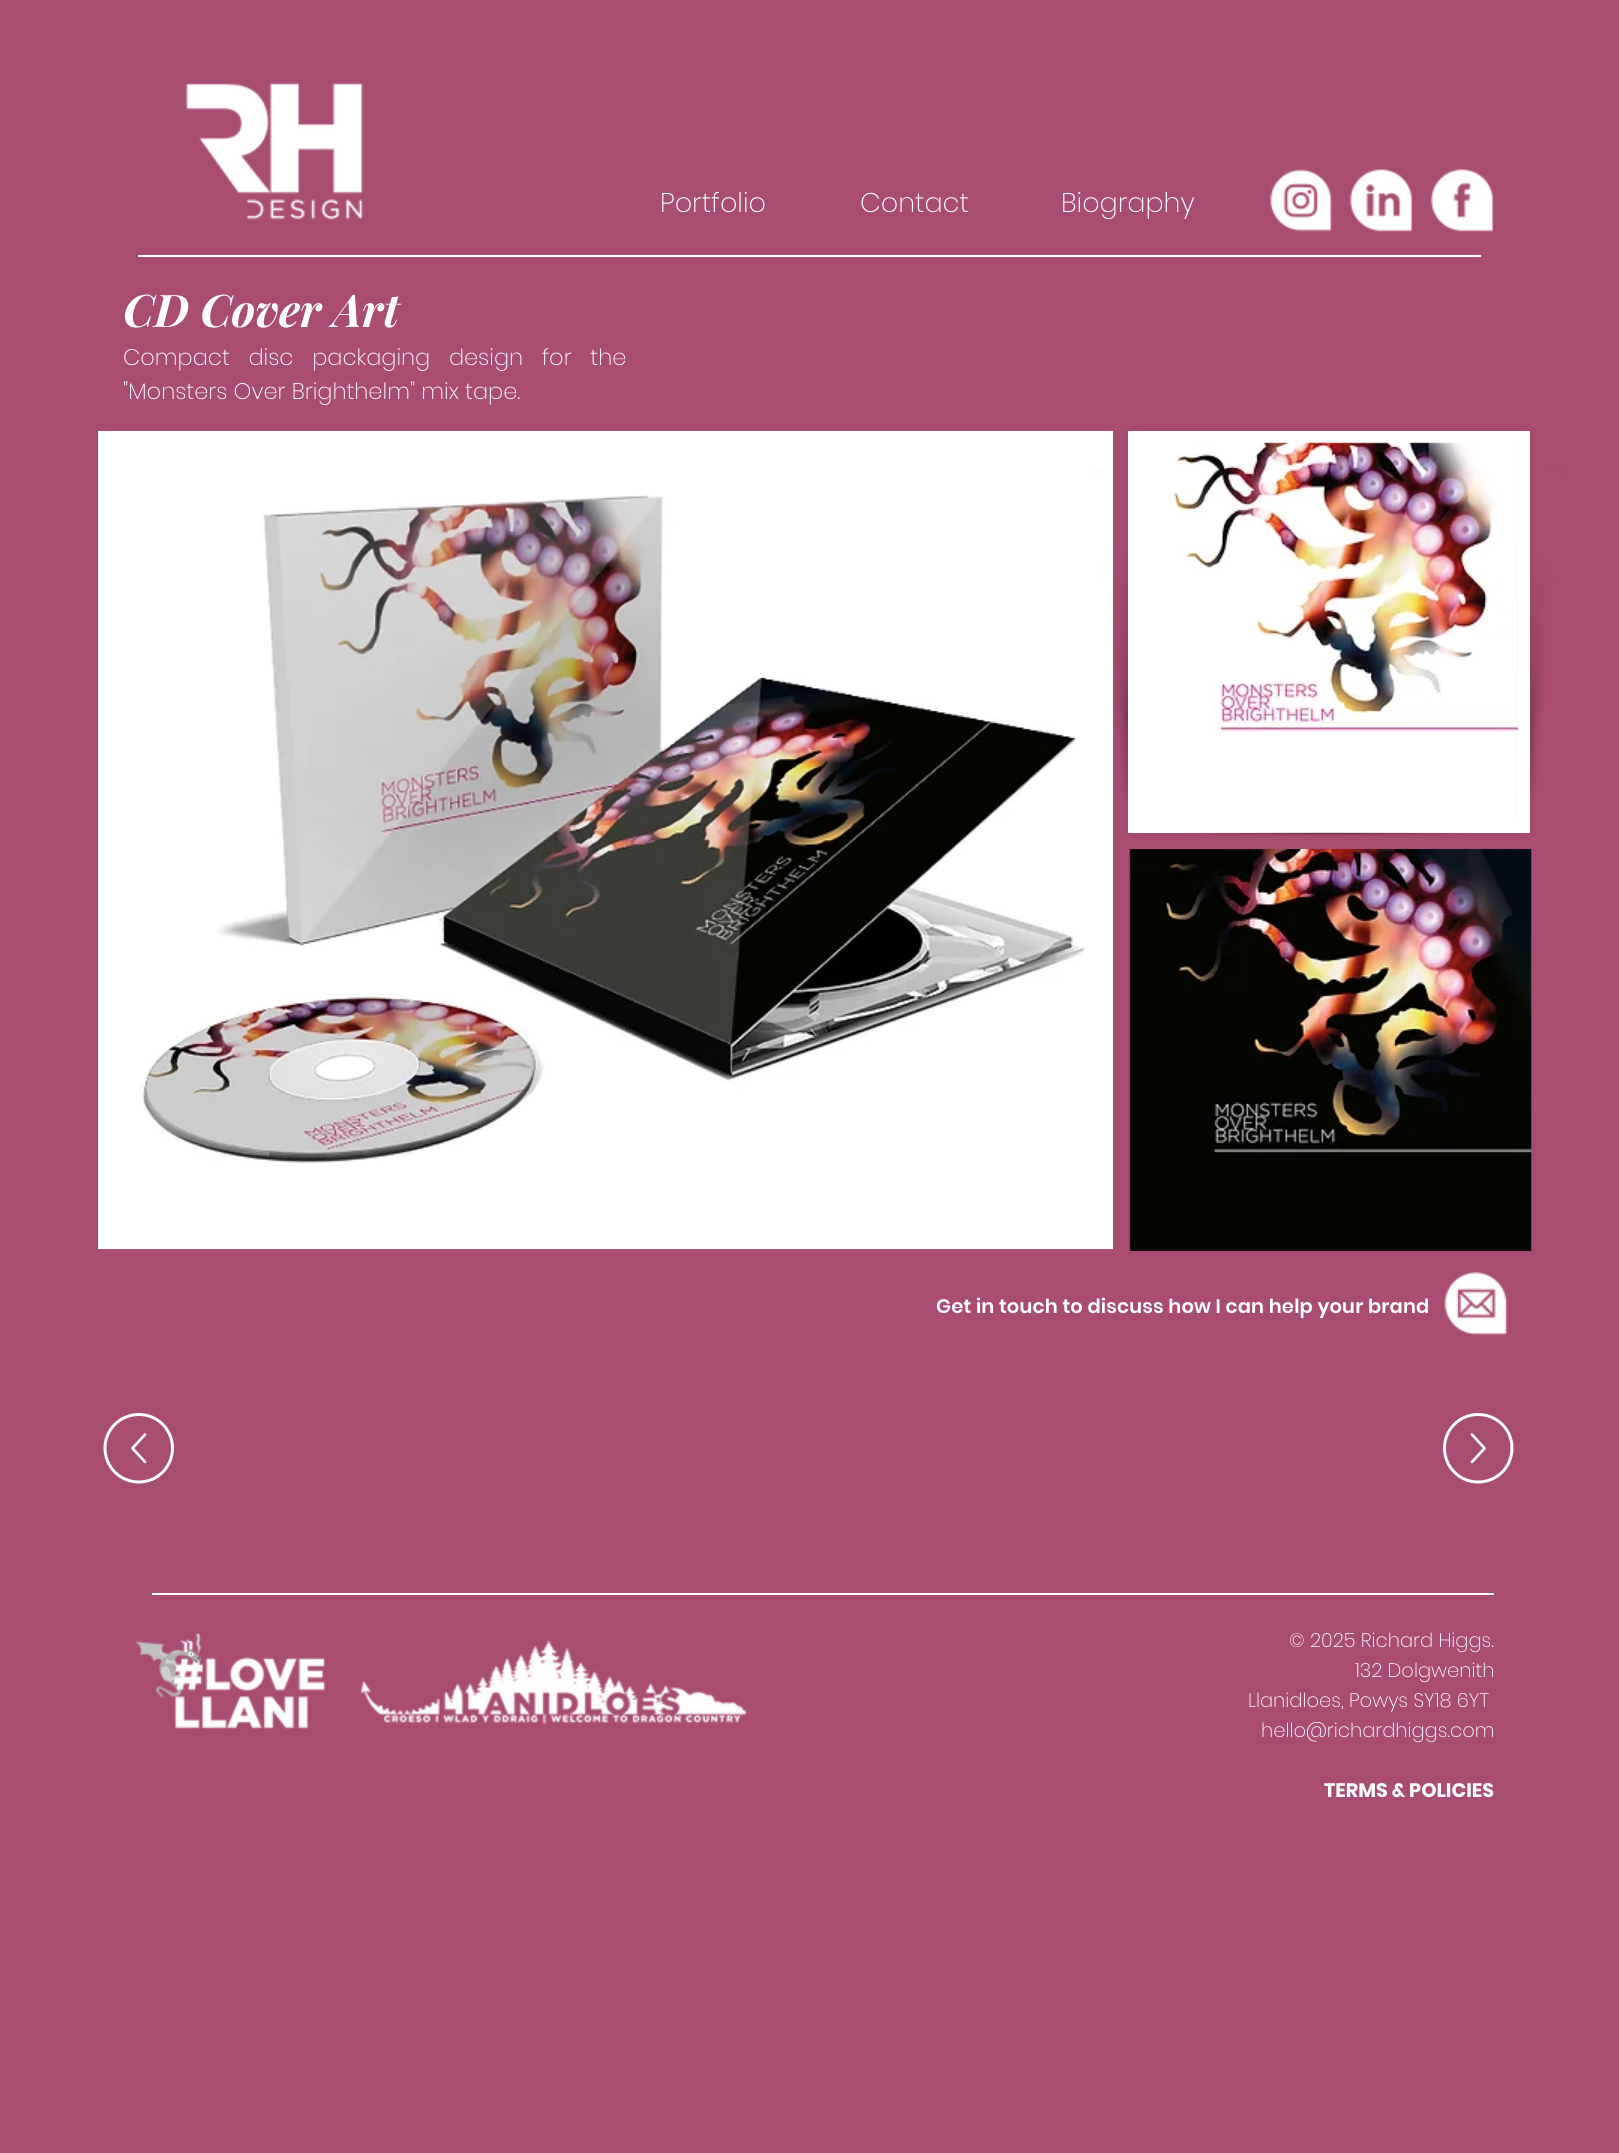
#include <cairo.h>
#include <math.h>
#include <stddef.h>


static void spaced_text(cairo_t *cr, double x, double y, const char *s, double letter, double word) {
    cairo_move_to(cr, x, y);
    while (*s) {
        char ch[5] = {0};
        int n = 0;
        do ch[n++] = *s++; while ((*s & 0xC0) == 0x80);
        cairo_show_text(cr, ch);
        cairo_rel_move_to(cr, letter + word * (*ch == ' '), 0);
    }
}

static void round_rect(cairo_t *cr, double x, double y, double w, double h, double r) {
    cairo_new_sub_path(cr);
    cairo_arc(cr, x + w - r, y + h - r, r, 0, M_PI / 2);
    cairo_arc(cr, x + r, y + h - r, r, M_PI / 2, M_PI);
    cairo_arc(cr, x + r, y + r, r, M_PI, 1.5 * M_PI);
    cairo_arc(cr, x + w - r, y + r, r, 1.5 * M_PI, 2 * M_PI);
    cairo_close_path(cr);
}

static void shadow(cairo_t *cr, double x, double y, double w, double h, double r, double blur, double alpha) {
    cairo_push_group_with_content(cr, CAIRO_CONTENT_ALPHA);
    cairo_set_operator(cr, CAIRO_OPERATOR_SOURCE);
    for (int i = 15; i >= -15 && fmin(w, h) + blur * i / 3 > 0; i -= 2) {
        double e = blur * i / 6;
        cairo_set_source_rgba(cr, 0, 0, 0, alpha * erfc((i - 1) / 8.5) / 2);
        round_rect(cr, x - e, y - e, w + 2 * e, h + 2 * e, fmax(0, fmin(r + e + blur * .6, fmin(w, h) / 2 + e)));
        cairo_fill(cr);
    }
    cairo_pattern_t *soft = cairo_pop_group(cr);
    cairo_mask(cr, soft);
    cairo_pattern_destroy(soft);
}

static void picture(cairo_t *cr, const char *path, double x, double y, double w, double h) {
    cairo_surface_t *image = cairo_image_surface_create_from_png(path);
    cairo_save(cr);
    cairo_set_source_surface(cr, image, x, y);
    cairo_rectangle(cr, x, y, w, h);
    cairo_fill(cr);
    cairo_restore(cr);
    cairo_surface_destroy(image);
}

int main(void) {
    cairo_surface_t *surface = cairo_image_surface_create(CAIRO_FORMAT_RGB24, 1619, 2153);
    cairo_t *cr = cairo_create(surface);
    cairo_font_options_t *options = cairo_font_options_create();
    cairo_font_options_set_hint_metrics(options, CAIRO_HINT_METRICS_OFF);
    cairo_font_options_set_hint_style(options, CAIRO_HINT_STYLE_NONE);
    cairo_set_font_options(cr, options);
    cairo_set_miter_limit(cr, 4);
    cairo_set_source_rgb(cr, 0.659, 0.298, 0.447);
    cairo_paint(cr);
    picture(cr, "img1.png", 185, 82, 179, 138);
    cairo_select_font_face(cr, "Poppins ExtraLight", CAIRO_FONT_SLANT_NORMAL, CAIRO_FONT_WEIGHT_NORMAL);
    cairo_set_font_size(cr, 27);
    cairo_set_source_rgb(cr, 1, 1, 1);
    cairo_move_to(cr, 660, 212);
    cairo_show_text(cr, "Portfolio");
    cairo_move_to(cr, 860, 212);
    cairo_show_text(cr, "Contact");
    cairo_move_to(cr, 1061, 212);
    cairo_show_text(cr, "Biography");
    picture(cr, "img2.png", 1270, 169, 63, 63);
    picture(cr, "img3.png", 1349, 169, 64, 63);
    picture(cr, "img4.png", 1430, 169, 64, 63);
    cairo_rectangle(cr, 138, 255, 1343, 2);
    cairo_fill(cr);
    cairo_select_font_face(cr, "Playfair Display", CAIRO_FONT_SLANT_ITALIC, CAIRO_FONT_WEIGHT_BOLD);
    cairo_set_font_size(cr, 45);
    cairo_move_to(cr, 123, 327);
    cairo_show_text(cr, "CD Cover Art");
    cairo_select_font_face(cr, "Poppins ExtraLight", CAIRO_FONT_SLANT_NORMAL, CAIRO_FONT_WEIGHT_NORMAL);
    cairo_set_font_size(cr, 22.5);
    spaced_text(cr, 123, 365, "Compact disc packaging design for the", 0, 12.5);
    cairo_move_to(cr, 123, 399);
    cairo_show_text(cr, "\"Monsters Over Brighthelm\" mix tape.");
    picture(cr, "img5.png", 98, 431, 1015, 819);
    cairo_set_source_rgb(cr, 0, 0, 0);
    shadow(cr, 1128, 431, 402, 402, 0, 4, 0.1);
    picture(cr, "img6.png", 1092, 471, 36, 328);
    cairo_set_source_rgb(cr, 1, 1, 1);
    cairo_rectangle(cr, 1128, 431, 402, 402);
    cairo_fill(cr);
    picture(cr, "img7.png", 1170, 442, 348, 378);
    picture(cr, "img8.png", 1194, 832, 271, 4);
    picture(cr, "img9.png", 1530, 471, 36, 328);
    picture(cr, "img10.png", 1129, 849, 403, 402);
    cairo_select_font_face(cr, "Poppins SemiBold", CAIRO_FONT_SLANT_NORMAL, CAIRO_FONT_WEIGHT_NORMAL);
    cairo_set_font_size(cr, 19.5);
    spaced_text(cr, 936, 1313, "Get in touch to discuss how I can help your brand", 0.2, 0);
    picture(cr, "img11.png", 1444, 1272, 64, 64);
    cairo_new_path(cr);
    cairo_move_to(cr, 105, 1448);
    cairo_curve_to(cr, 105, 1429.5, 120, 1414.5, 139, 1414.5);
    cairo_curve_to(cr, 157.5, 1414.5, 172.5, 1429.5, 172.5, 1448);
    cairo_curve_to(cr, 172.5, 1467, 157.5, 1482, 139, 1482);
    cairo_curve_to(cr, 120, 1482, 105, 1467, 105, 1448);
    cairo_close_path(cr);
    cairo_set_line_width(cr, 3);
    cairo_stroke(cr);
    picture(cr, "img12.png", 131, 1433, 16, 31);
    cairo_new_path(cr);
    cairo_move_to(cr, 1512, 1448);
    cairo_curve_to(cr, 1512, 1467, 1497, 1482, 1478, 1482);
    cairo_curve_to(cr, 1459.5, 1482, 1444.5, 1467, 1444.5, 1448);
    cairo_curve_to(cr, 1444.5, 1429.5, 1459.5, 1414.5, 1478, 1414.5);
    cairo_curve_to(cr, 1497, 1414.5, 1512, 1429.5, 1512, 1448);
    cairo_close_path(cr);
    cairo_stroke(cr);
    picture(cr, "img13.png", 1470, 1433, 16, 31);
    cairo_rectangle(cr, 152, 1593, 1342, 2);
    cairo_fill(cr);
    picture(cr, "img14.png", 135, 1633, 191, 96);
    picture(cr, "img15.png", 360, 1640, 388, 84);
    cairo_select_font_face(cr, "Poppins ExtraLight", CAIRO_FONT_SLANT_NORMAL, CAIRO_FONT_WEIGHT_NORMAL);
    cairo_move_to(cr, 1289, 1647);
    cairo_show_text(cr, "© 2025 Richard Higgs.");
    cairo_move_to(cr, 1355, 1677);
    cairo_show_text(cr, "132 Dolgwenith");
    cairo_move_to(cr, 1248, 1707);
    cairo_show_text(cr, "Llanidloes, Powys SY18 6YT");
    cairo_move_to(cr, 1261, 1737);
    cairo_show_text(cr, "hello@richardhiggs.com");
    cairo_select_font_face(cr, "Poppins", CAIRO_FONT_SLANT_NORMAL, CAIRO_FONT_WEIGHT_BOLD);
    cairo_move_to(cr, 1324, 1797);
    cairo_show_text(cr, "TERMS & POLICIES");
    cairo_surface_write_to_png(surface, "page.png");
    cairo_font_options_destroy(options);
    cairo_destroy(cr);
    cairo_surface_destroy(surface);
    return 0;
}
